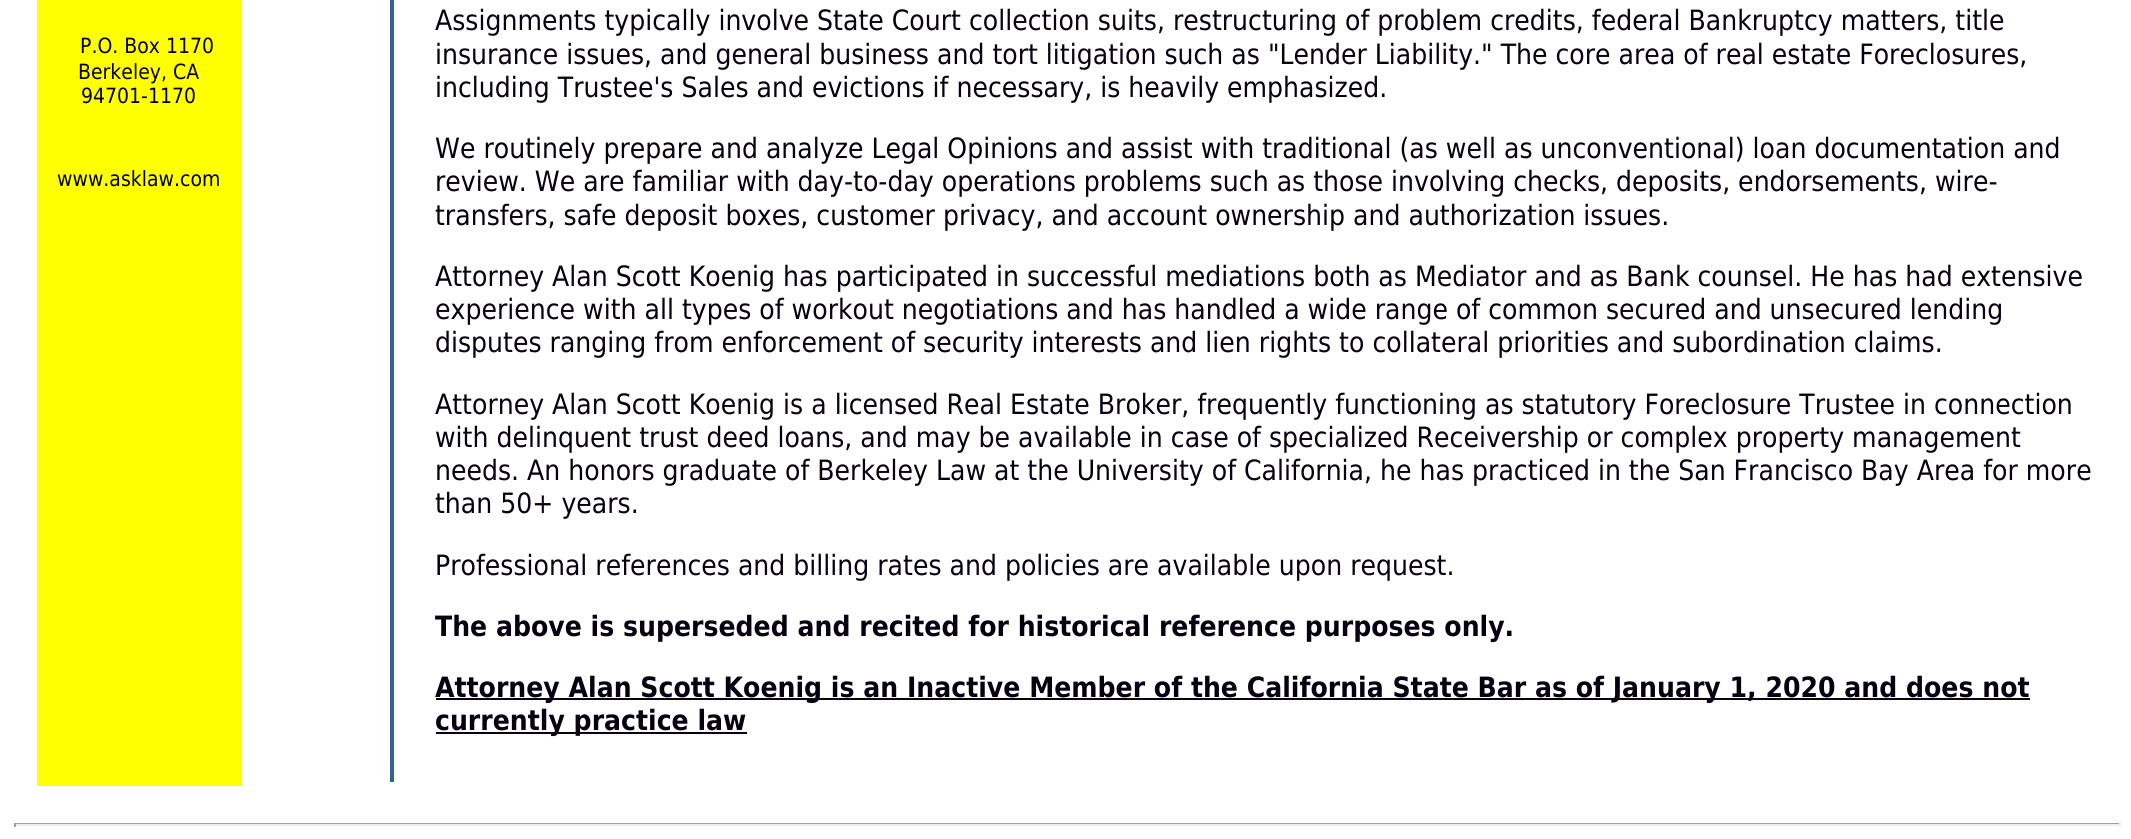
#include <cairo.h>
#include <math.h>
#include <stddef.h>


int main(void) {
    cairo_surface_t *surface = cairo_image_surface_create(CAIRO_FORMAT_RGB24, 2131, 839);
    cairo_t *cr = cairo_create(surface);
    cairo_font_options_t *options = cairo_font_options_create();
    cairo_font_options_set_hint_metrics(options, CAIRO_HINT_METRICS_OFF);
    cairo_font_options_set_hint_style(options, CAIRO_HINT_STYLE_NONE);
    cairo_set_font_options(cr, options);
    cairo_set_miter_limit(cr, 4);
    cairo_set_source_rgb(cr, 1, 1, 1);
    cairo_paint(cr);
    cairo_set_source_rgb(cr, 1, 1, 0);
    cairo_rectangle(cr, 37, 0, 205, 786);
    cairo_fill(cr);
    cairo_select_font_face(cr, "DejaVu Sans", CAIRO_FONT_SLANT_NORMAL, CAIRO_FONT_WEIGHT_NORMAL);
    cairo_set_font_size(cr, 21);
    cairo_set_source_rgb(cr, 0.031, 0, 0.063);
    cairo_move_to(cr, 80, 53);
    cairo_show_text(cr, "P.O. Box 1170");
    cairo_move_to(cr, 78, 79);
    cairo_show_text(cr, "Berkeley, CA");
    cairo_move_to(cr, 81, 103);
    cairo_show_text(cr, "94701-1170");
    cairo_set_source_rgb(cr, 0, 0, 0);
    cairo_move_to(cr, 57, 186);
    cairo_show_text(cr, "www.asklaw.com");
    cairo_set_source_rgb(cr, 0.192, 0.388, 0.612);
    cairo_rectangle(cr, 390, 0, 4, 782);
    cairo_fill(cr);
    cairo_set_font_size(cr, 28);
    cairo_set_source_rgb(cr, 0.031, 0, 0.063);
    cairo_move_to(cr, 435, 30);
    cairo_show_text(cr, "Assignments typically involve State Court collection suits, restructuring of problem credits, federal Bankruptcy matters, title");
    cairo_move_to(cr, 435, 64);
    cairo_show_text(cr, "insurance issues, and general business and tort litigation such as \"Lender Liability.\" The core area of real estate Foreclosures,");
    cairo_move_to(cr, 435, 97);
    cairo_show_text(cr, "including Trustee's Sales and evictions if necessary, is heavily emphasized.");
    cairo_move_to(cr, 435, 158);
    cairo_show_text(cr, "We routinely prepare and analyze Legal Opinions and assist with traditional (as well as unconventional) loan documentation and");
    cairo_move_to(cr, 435, 191);
    cairo_show_text(cr, "review. We are familiar with day-to-day operations problems such as those involving checks, deposits, endorsements, wire-");
    cairo_move_to(cr, 435, 225);
    cairo_show_text(cr, "transfers, safe deposit boxes, customer privacy, and account ownership and authorization issues.");
    cairo_move_to(cr, 435, 286);
    cairo_show_text(cr, "Attorney Alan Scott Koenig has participated in successful mediations both as Mediator and as Bank counsel. He has had extensive");
    cairo_move_to(cr, 435, 319);
    cairo_show_text(cr, "experience with all types of workout negotiations and has handled a wide range of common secured and unsecured lending");
    cairo_move_to(cr, 435, 352);
    cairo_show_text(cr, "disputes ranging from enforcement of security interests and lien rights to collateral priorities and subordination claims.");
    cairo_move_to(cr, 435, 414);
    cairo_show_text(cr, "Attorney Alan Scott Koenig is a licensed Real Estate Broker, frequently functioning as statutory Foreclosure Trustee in connection");
    cairo_move_to(cr, 435, 447);
    cairo_show_text(cr, "with delinquent trust deed loans, and may be available in case of specialized Receivership or complex property management");
    cairo_move_to(cr, 435, 480);
    cairo_show_text(cr, "needs. An honors graduate of Berkeley Law at the University of California, he has practiced in the San Francisco Bay Area for more");
    cairo_move_to(cr, 435, 513);
    cairo_show_text(cr, "than 50+ years.");
    cairo_move_to(cr, 435, 575);
    cairo_show_text(cr, "Professional references and billing rates and policies are available upon request.");
    cairo_select_font_face(cr, "DejaVu Sans", CAIRO_FONT_SLANT_NORMAL, CAIRO_FONT_WEIGHT_BOLD);
    cairo_move_to(cr, 435, 636);
    cairo_show_text(cr, "The above is superseded and recited for historical reference purposes only.");
    cairo_rectangle(cr, 436, 698, 1594, 2);
    cairo_fill(cr);
    cairo_move_to(cr, 435, 697);
    cairo_show_text(cr, "Attorney Alan Scott Koenig is an Inactive Member of the California State Bar as of January 1, 2020 and does not");
    cairo_rectangle(cr, 436, 732, 311, 2);
    cairo_fill(cr);
    cairo_move_to(cr, 435, 730);
    cairo_show_text(cr, "currently practice law");
    cairo_set_source_rgb(cr, 0.624, 0.624, 0.624);
    cairo_rectangle(cr, 14, 823, 2107, 1);
    cairo_fill(cr);
    cairo_set_source_rgb(cr, 0.933, 0.933, 0.933);
    cairo_rectangle(cr, 2119, 823, 2, 4);
    cairo_fill(cr);
    cairo_rectangle(cr, 14, 824, 2107, 2);
    cairo_fill(cr);
    cairo_set_source_rgb(cr, 0.624, 0.624, 0.624);
    cairo_rectangle(cr, 14, 823, 2, 4);
    cairo_fill(cr);
    cairo_surface_write_to_png(surface, "page.png");
    cairo_font_options_destroy(options);
    cairo_destroy(cr);
    cairo_surface_destroy(surface);
    return 0;
}
